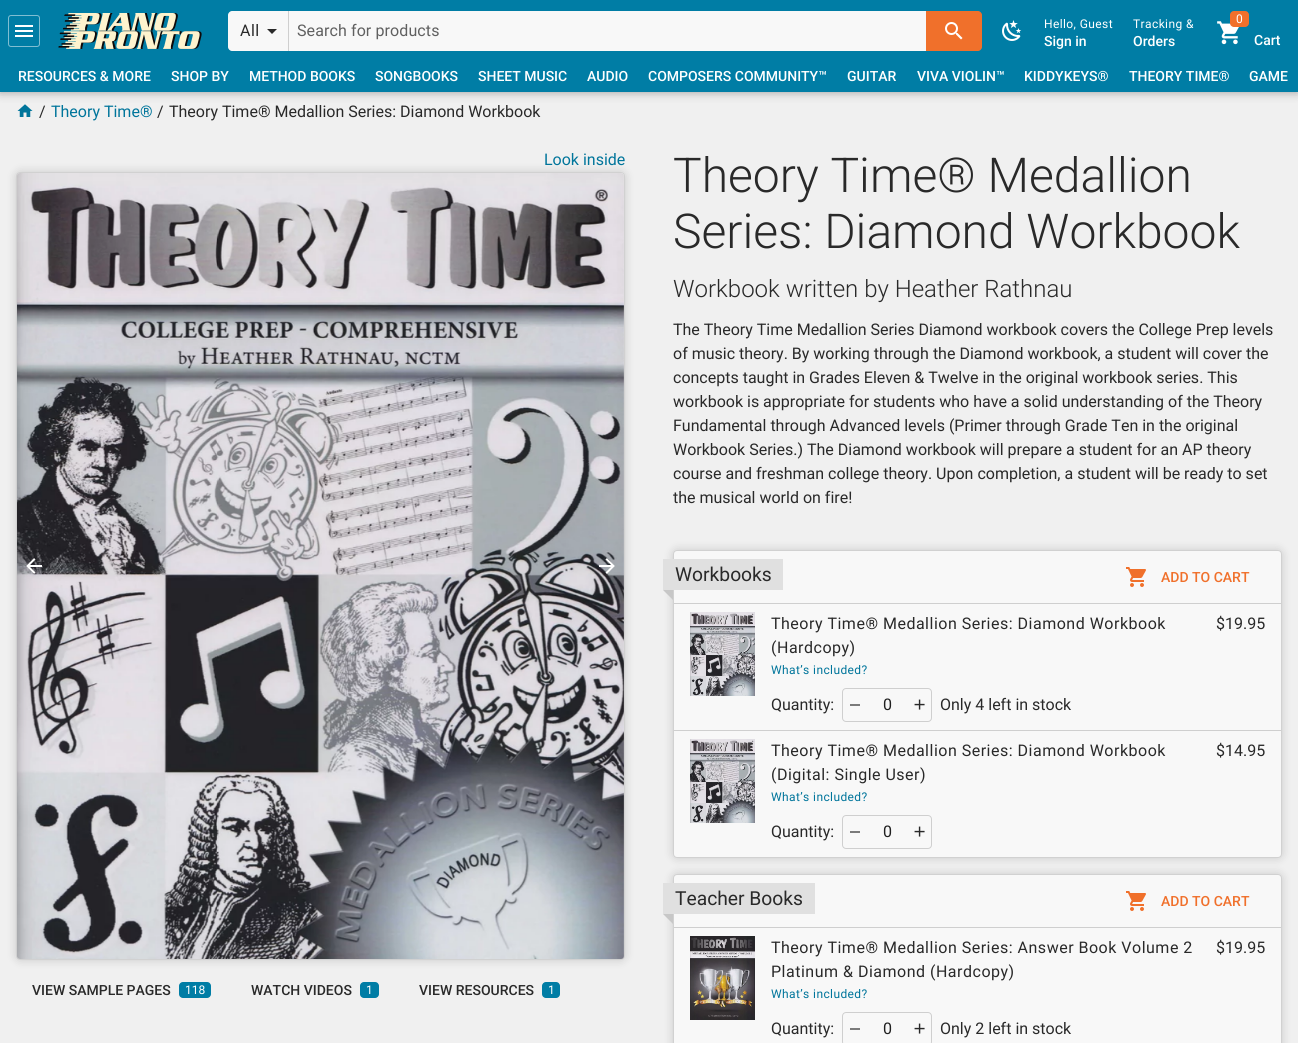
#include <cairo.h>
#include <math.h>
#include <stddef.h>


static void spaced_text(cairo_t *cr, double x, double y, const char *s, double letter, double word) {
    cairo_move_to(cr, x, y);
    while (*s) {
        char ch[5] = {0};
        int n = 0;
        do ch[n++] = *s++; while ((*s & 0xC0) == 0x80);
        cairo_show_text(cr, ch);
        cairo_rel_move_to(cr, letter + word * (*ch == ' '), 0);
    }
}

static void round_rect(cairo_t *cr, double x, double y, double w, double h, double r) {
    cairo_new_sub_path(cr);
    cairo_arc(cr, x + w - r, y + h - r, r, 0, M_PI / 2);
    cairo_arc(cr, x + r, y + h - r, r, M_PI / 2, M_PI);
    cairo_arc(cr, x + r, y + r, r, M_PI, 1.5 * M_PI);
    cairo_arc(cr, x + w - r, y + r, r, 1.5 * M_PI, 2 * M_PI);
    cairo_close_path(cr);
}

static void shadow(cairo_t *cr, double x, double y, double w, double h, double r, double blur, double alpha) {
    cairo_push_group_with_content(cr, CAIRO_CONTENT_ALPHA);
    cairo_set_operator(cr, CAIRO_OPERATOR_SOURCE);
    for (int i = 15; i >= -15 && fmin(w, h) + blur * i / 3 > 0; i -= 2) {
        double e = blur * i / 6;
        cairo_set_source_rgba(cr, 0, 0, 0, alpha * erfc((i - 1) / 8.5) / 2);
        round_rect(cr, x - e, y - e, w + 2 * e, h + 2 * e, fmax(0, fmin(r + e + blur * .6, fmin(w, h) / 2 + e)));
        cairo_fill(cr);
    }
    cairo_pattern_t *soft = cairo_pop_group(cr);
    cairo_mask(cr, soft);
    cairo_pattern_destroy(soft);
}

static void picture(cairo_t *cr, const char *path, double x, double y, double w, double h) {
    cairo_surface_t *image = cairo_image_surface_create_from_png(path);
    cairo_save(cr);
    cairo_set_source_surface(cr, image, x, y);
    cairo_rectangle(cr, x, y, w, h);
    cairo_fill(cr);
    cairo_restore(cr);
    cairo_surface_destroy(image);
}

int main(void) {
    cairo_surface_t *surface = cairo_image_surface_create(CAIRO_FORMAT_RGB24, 1298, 1043);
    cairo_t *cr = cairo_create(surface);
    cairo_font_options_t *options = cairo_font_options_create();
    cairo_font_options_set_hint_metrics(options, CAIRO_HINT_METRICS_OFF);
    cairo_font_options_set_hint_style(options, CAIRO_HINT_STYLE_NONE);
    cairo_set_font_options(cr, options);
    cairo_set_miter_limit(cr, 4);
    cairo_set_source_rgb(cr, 0.941, 0.941, 0.941);
    cairo_paint(cr);
    picture(cr, "img6.png", 17, 104, 16, 13);
    cairo_set_source_rgb(cr, 0, 0, 0);
    shadow(cr, 0, 0, 1298, 92, 0, 5, 0.36);
    cairo_set_source_rgb(cr, 0, 0.49, 0.647);
    cairo_rectangle(cr, 0, 0, 1298, 92);
    cairo_fill(cr);
    round_rect(cr, 8.5, 15.5, 31, 31, 2.5);
    cairo_set_source_rgb(cr, 0.502, 0.745, 0.824);
    cairo_set_line_width(cr, 1);
    cairo_stroke(cr);
    picture(cr, "img1.png", 15, 25, 18, 12);
    picture(cr, "img2.png", 58, 13, 144, 36);
    cairo_set_source_rgb(cr, 0.969, 0.969, 0.969);
    cairo_new_path(cr);
    cairo_move_to(cr, 232, 11);
    cairo_line_to(cr, 289, 11);
    cairo_line_to(cr, 289, 51);
    cairo_line_to(cr, 232, 51);
    cairo_curve_to(cr, 230, 51, 228, 49, 228, 47);
    cairo_line_to(cr, 228, 15);
    cairo_curve_to(cr, 228, 13, 230, 11, 232, 11);
    cairo_close_path(cr);
    cairo_fill(cr);
    cairo_set_source_rgb(cr, 0.812, 0.812, 0.812);
    cairo_rectangle(cr, 288, 11, 1, 40);
    cairo_fill(cr);
    cairo_select_font_face(cr, "Roboto", CAIRO_FONT_SLANT_NORMAL, CAIRO_FONT_WEIGHT_NORMAL);
    cairo_set_font_size(cr, 16);
    cairo_set_source_rgb(cr, 0.161, 0.161, 0.161);
    spaced_text(cr, 240, 36, "All", 0.5, 0);
    cairo_new_path(cr);
    cairo_move_to(cr, 267, 29);
    cairo_line_to(cr, 272, 34);
    cairo_line_to(cr, 277, 29);
    cairo_close_path(cr);
    cairo_fill(cr);
    cairo_set_source_rgb(cr, 0.969, 0.969, 0.969);
    cairo_rectangle(cr, 289, 11, 637, 40);
    cairo_fill(cr);
    cairo_set_source_rgb(cr, 0.376, 0.376, 0.376);
    spaced_text(cr, 297, 36, "Search for products", 0.1, 0);
    cairo_set_source_rgb(cr, 0.941, 0.439, 0.169);
    cairo_new_path(cr);
    cairo_move_to(cr, 926, 11);
    cairo_line_to(cr, 978, 11);
    cairo_curve_to(cr, 980, 11, 982, 13, 982, 15);
    cairo_line_to(cr, 982, 47);
    cairo_curve_to(cr, 982, 49, 980, 51, 978, 51);
    cairo_line_to(cr, 926, 51);
    cairo_close_path(cr);
    cairo_fill(cr);
    picture(cr, "img3.png", 945, 22, 18, 18);
    picture(cr, "img4.png", 1002, 20, 20, 21);
    cairo_set_font_size(cr, 12);
    cairo_set_source_rgb(cr, 1, 1, 1);
    spaced_text(cr, 1044, 28, "Hello, Guest", 0.4, 0);
    cairo_select_font_face(cr, "Roboto Medium", CAIRO_FONT_SLANT_NORMAL, CAIRO_FONT_WEIGHT_NORMAL);
    cairo_set_font_size(cr, 14);
    cairo_move_to(cr, 1044, 46);
    cairo_show_text(cr, "Sign in");
    cairo_select_font_face(cr, "Roboto", CAIRO_FONT_SLANT_NORMAL, CAIRO_FONT_WEIGHT_NORMAL);
    cairo_set_font_size(cr, 12);
    spaced_text(cr, 1133, 28, "Tracking &", 0.4, 0);
    cairo_select_font_face(cr, "Roboto Medium", CAIRO_FONT_SLANT_NORMAL, CAIRO_FONT_WEIGHT_NORMAL);
    cairo_set_font_size(cr, 14);
    cairo_move_to(cr, 1133, 46);
    cairo_show_text(cr, "Orders");
    picture(cr, "img5.png", 1217, 21, 22, 24);
    cairo_set_source_rgb(cr, 0.941, 0.439, 0.169);
    round_rect(cr, 1230, 11, 19, 16, 4);
    cairo_fill(cr);
    cairo_select_font_face(cr, "Roboto", CAIRO_FONT_SLANT_NORMAL, CAIRO_FONT_WEIGHT_NORMAL);
    cairo_set_font_size(cr, 12);
    cairo_set_source_rgb(cr, 1, 1, 1);
    cairo_move_to(cr, 1236, 23);
    cairo_show_text(cr, "0");
    cairo_select_font_face(cr, "Roboto Medium", CAIRO_FONT_SLANT_NORMAL, CAIRO_FONT_WEIGHT_NORMAL);
    cairo_set_font_size(cr, 14);
    cairo_move_to(cr, 1254, 45);
    cairo_show_text(cr, "Cart");
    cairo_move_to(cr, 18, 81);
    cairo_show_text(cr, "RESOURCES & MORE");
    cairo_move_to(cr, 171, 81);
    cairo_show_text(cr, "SHOP BY");
    cairo_move_to(cr, 249, 81);
    cairo_show_text(cr, "METHOD BOOKS");
    cairo_move_to(cr, 375, 81);
    cairo_show_text(cr, "SONGBOOKS");
    cairo_move_to(cr, 478, 81);
    cairo_show_text(cr, "SHEET MUSIC");
    cairo_move_to(cr, 587, 81);
    cairo_show_text(cr, "AUDIO");
    cairo_move_to(cr, 648, 81);
    cairo_show_text(cr, "COMPOSERS COMMUNITY™");
    cairo_move_to(cr, 847, 81);
    cairo_show_text(cr, "GUITAR");
    cairo_move_to(cr, 917, 81);
    cairo_show_text(cr, "VIVA VIOLIN™");
    cairo_move_to(cr, 1024, 81);
    cairo_show_text(cr, "KIDDYKEYS®");
    cairo_move_to(cr, 1129, 81);
    cairo_show_text(cr, "THEORY TIME®");
    cairo_move_to(cr, 1249, 81);
    cairo_show_text(cr, "GAME");
    cairo_select_font_face(cr, "Roboto", CAIRO_FONT_SLANT_NORMAL, CAIRO_FONT_WEIGHT_NORMAL);
    cairo_set_font_size(cr, 16);
    cairo_set_source_rgb(cr, 0.161, 0.161, 0.161);
    cairo_move_to(cr, 39, 117);
    cairo_show_text(cr, "/");
    cairo_set_source_rgb(cr, 0, 0.459, 0.608);
    cairo_move_to(cr, 51, 117);
    cairo_show_text(cr, "Theory Time®");
    cairo_set_source_rgb(cr, 0.161, 0.161, 0.161);
    cairo_move_to(cr, 157, 117);
    cairo_show_text(cr, "/");
    cairo_move_to(cr, 169, 117);
    cairo_show_text(cr, "Theory Time® Medallion Series: Diamond Workbook");
    cairo_set_source_rgb(cr, 0, 0.459, 0.608);
    cairo_move_to(cr, 544, 165);
    cairo_show_text(cr, "Look inside");
    cairo_set_source_rgb(cr, 0, 0, 0);
    shadow(cr, 16, 172, 609, 788, 4, 5, 0.16);
    cairo_set_source_rgb(cr, 0.969, 0.969, 0.969);
    round_rect(cr, 16, 172, 609, 788, 4);
    cairo_fill(cr);
    round_rect(cr, 16.5, 172.5, 608, 787, 3.5);
    cairo_set_source_rgba(cr, 0, 0, 0, 0.16);
    cairo_stroke(cr);
    picture(cr, "img7.png", 17, 173, 607, 786);
    picture(cr, "img8.png", 26, 558, 16, 16);
    picture(cr, "img9.png", 599, 558, 16, 16);
    cairo_select_font_face(cr, "Roboto Medium", CAIRO_FONT_SLANT_NORMAL, CAIRO_FONT_WEIGHT_NORMAL);
    cairo_set_font_size(cr, 14);
    cairo_set_source_rgb(cr, 0.161, 0.161, 0.161);
    cairo_move_to(cr, 32, 995);
    cairo_show_text(cr, "VIEW SAMPLE PAGES");
    cairo_set_source_rgb(cr, 0, 0.49, 0.647);
    round_rect(cr, 179, 982, 32, 16, 4);
    cairo_fill(cr);
    cairo_select_font_face(cr, "Roboto", CAIRO_FONT_SLANT_NORMAL, CAIRO_FONT_WEIGHT_NORMAL);
    cairo_set_font_size(cr, 12);
    cairo_set_source_rgb(cr, 1, 1, 1);
    cairo_move_to(cr, 185, 994);
    cairo_show_text(cr, "118");
    cairo_select_font_face(cr, "Roboto Medium", CAIRO_FONT_SLANT_NORMAL, CAIRO_FONT_WEIGHT_NORMAL);
    cairo_set_font_size(cr, 14);
    cairo_set_source_rgb(cr, 0.161, 0.161, 0.161);
    cairo_move_to(cr, 251, 995);
    cairo_show_text(cr, "WATCH VIDEOS");
    cairo_set_source_rgb(cr, 0, 0.49, 0.647);
    round_rect(cr, 360, 982, 19, 16, 4);
    cairo_fill(cr);
    cairo_select_font_face(cr, "Roboto", CAIRO_FONT_SLANT_NORMAL, CAIRO_FONT_WEIGHT_NORMAL);
    cairo_set_font_size(cr, 12);
    cairo_set_source_rgb(cr, 1, 1, 1);
    cairo_move_to(cr, 366, 994);
    cairo_show_text(cr, "1");
    cairo_select_font_face(cr, "Roboto Medium", CAIRO_FONT_SLANT_NORMAL, CAIRO_FONT_WEIGHT_NORMAL);
    cairo_set_font_size(cr, 14);
    cairo_set_source_rgb(cr, 0.161, 0.161, 0.161);
    cairo_move_to(cr, 419, 995);
    cairo_show_text(cr, "VIEW RESOURCES");
    cairo_set_source_rgb(cr, 0, 0.49, 0.647);
    round_rect(cr, 542, 982, 18, 16, 4);
    cairo_fill(cr);
    cairo_select_font_face(cr, "Roboto", CAIRO_FONT_SLANT_NORMAL, CAIRO_FONT_WEIGHT_NORMAL);
    cairo_set_font_size(cr, 12);
    cairo_set_source_rgb(cr, 1, 1, 1);
    cairo_move_to(cr, 548, 994);
    cairo_show_text(cr, "1");
    cairo_select_font_face(cr, "Roboto Light", CAIRO_FONT_SLANT_NORMAL, CAIRO_FONT_WEIGHT_NORMAL);
    cairo_set_font_size(cr, 48);
    cairo_set_source_rgb(cr, 0.161, 0.161, 0.161);
    cairo_move_to(cr, 673, 192);
    cairo_show_text(cr, "Theory Time® Medallion");
    cairo_move_to(cr, 673, 248);
    cairo_show_text(cr, "Series: Diamond Workbook");
    cairo_set_font_size(cr, 24);
    cairo_move_to(cr, 673, 297);
    cairo_show_text(cr, "Workbook written by Heather Rathnau");
    cairo_select_font_face(cr, "Roboto", CAIRO_FONT_SLANT_NORMAL, CAIRO_FONT_WEIGHT_NORMAL);
    cairo_set_font_size(cr, 16);
    cairo_move_to(cr, 673, 335);
    cairo_show_text(cr, "The Theory Time Medallion Series Diamond workbook covers the College Prep levels");
    cairo_move_to(cr, 673, 359);
    cairo_show_text(cr, "of music theory. By working through the Diamond workbook, a student will cover the");
    cairo_move_to(cr, 673, 383);
    cairo_show_text(cr, "concepts taught in Grades Eleven & Twelve in the original workbook series. This");
    cairo_move_to(cr, 673, 407);
    cairo_show_text(cr, "workbook is appropriate for students who have a solid understanding of the Theory");
    cairo_move_to(cr, 673, 431);
    cairo_show_text(cr, "Fundamental through Advanced levels (Primer through Grade Ten in the original");
    cairo_move_to(cr, 673, 455);
    cairo_show_text(cr, "Workbook Series.) The Diamond workbook will prepare a student for an AP theory");
    cairo_move_to(cr, 673, 479);
    cairo_show_text(cr, "course and freshman college theory. Upon completion, a student will be ready to set");
    cairo_move_to(cr, 673, 503);
    cairo_show_text(cr, "the musical world on fire!");
    cairo_set_source_rgb(cr, 0, 0, 0);
    shadow(cr, 673, 550, 609, 308, 4, 5, 0.16);
    cairo_set_source_rgb(cr, 0.969, 0.969, 0.969);
    round_rect(cr, 673, 550, 609, 308, 4);
    cairo_fill(cr);
    round_rect(cr, 673.5, 550.5, 608, 307, 3.5);
    cairo_set_source_rgba(cr, 0, 0, 0, 0.16);
    cairo_stroke(cr);
    cairo_set_source_rgb(cr, 0.878, 0.878, 0.878);
    cairo_rectangle(cr, 663, 559, 120, 31);
    cairo_fill(cr);
    cairo_set_font_size(cr, 19.25);
    cairo_set_source_rgb(cr, 0.161, 0.161, 0.161);
    cairo_move_to(cr, 675, 581);
    cairo_show_text(cr, "Workbooks");
    cairo_set_source_rgb(cr, 0.78, 0.78, 0.78);
    cairo_new_path(cr);
    cairo_move_to(cr, 663, 590);
    cairo_line_to(cr, 673, 590);
    cairo_line_to(cr, 673, 600);
    cairo_close_path(cr);
    cairo_fill(cr);
    picture(cr, "img10.png", 1126, 567, 20, 20);
    cairo_select_font_face(cr, "Roboto Medium", CAIRO_FONT_SLANT_NORMAL, CAIRO_FONT_WEIGHT_NORMAL);
    cairo_set_font_size(cr, 14);
    cairo_set_source_rgb(cr, 0.941, 0.439, 0.169);
    cairo_move_to(cr, 1161, 582);
    cairo_show_text(cr, "ADD TO CART");
    cairo_set_source_rgb(cr, 0.812, 0.812, 0.812);
    cairo_rectangle(cr, 674, 603, 607, 1);
    cairo_fill(cr);
    picture(cr, "img11.png", 690, 612, 65, 84);
    cairo_select_font_face(cr, "Roboto", CAIRO_FONT_SLANT_NORMAL, CAIRO_FONT_WEIGHT_NORMAL);
    cairo_set_font_size(cr, 16);
    cairo_set_source_rgb(cr, 0.161, 0.161, 0.161);
    spaced_text(cr, 771, 629, "Theory Time® Medallion Series: Diamond Workbook", 0.5, 0);
    spaced_text(cr, 771, 653, "(Hardcopy)", 0.5, 0);
    cairo_set_font_size(cr, 12);
    cairo_set_source_rgb(cr, 0, 0.459, 0.608);
    spaced_text(cr, 771, 674, "What’s included?", 0.4, 0);
    cairo_set_font_size(cr, 16);
    cairo_set_source_rgb(cr, 0.161, 0.161, 0.161);
    cairo_move_to(cr, 771, 710);
    cairo_show_text(cr, "Quantity:");
    round_rect(cr, 842.5, 688.5, 89, 33, 3.5);
    cairo_set_source_rgb(cr, 0.812, 0.812, 0.812);
    cairo_stroke(cr);
    cairo_set_source_rgb(cr, 0.482, 0.482, 0.482);
    cairo_rectangle(cr, 850, 704, 10, 2);
    cairo_fill(cr);
    cairo_set_source_rgb(cr, 0.125, 0.125, 0.125);
    spaced_text(cr, 883, 710, "0", 0.1, 0);
    picture(cr, "img12.png", 914, 699, 11, 11);
    cairo_set_source_rgb(cr, 0.161, 0.161, 0.161);
    cairo_move_to(cr, 940, 710);
    cairo_show_text(cr, "Only 4 left in stock");
    cairo_move_to(cr, 1216, 629);
    cairo_show_text(cr, "$19.95");
    cairo_set_source_rgb(cr, 0.812, 0.812, 0.812);
    cairo_rectangle(cr, 674, 730, 607, 1);
    cairo_fill(cr);
    picture(cr, "img13.png", 690, 739, 65, 84);
    cairo_set_source_rgb(cr, 0.161, 0.161, 0.161);
    spaced_text(cr, 771, 756, "Theory Time® Medallion Series: Diamond Workbook", 0.5, 0);
    spaced_text(cr, 771, 780, "(Digital: Single User)", 0.5, 0);
    cairo_set_font_size(cr, 12);
    cairo_set_source_rgb(cr, 0, 0.459, 0.608);
    spaced_text(cr, 771, 801, "What’s included?", 0.4, 0);
    cairo_set_font_size(cr, 16);
    cairo_set_source_rgb(cr, 0.161, 0.161, 0.161);
    cairo_move_to(cr, 771, 837);
    cairo_show_text(cr, "Quantity:");
    round_rect(cr, 842.5, 815.5, 89, 33, 3.5);
    cairo_set_source_rgb(cr, 0.812, 0.812, 0.812);
    cairo_stroke(cr);
    cairo_set_source_rgb(cr, 0.482, 0.482, 0.482);
    cairo_rectangle(cr, 850, 831, 10, 2);
    cairo_fill(cr);
    cairo_set_source_rgb(cr, 0.125, 0.125, 0.125);
    spaced_text(cr, 883, 837, "0", 0.1, 0);
    picture(cr, "img12.png", 914, 826, 11, 11);
    cairo_set_source_rgb(cr, 0.161, 0.161, 0.161);
    cairo_move_to(cr, 1216, 756);
    cairo_show_text(cr, "$14.95");
    cairo_set_source_rgb(cr, 0, 0, 0);
    shadow(cr, 673, 874, 609, 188, 4, 5, 0.16);
    cairo_set_source_rgb(cr, 0.969, 0.969, 0.969);
    round_rect(cr, 673, 874, 609, 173, 4);
    cairo_fill(cr);
    round_rect(cr, 673.5, 874.5, 608, 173, 3.5);
    cairo_set_source_rgba(cr, 0, 0, 0, 0.16);
    cairo_stroke(cr);
    cairo_set_source_rgb(cr, 0.878, 0.878, 0.878);
    cairo_rectangle(cr, 663, 883, 152, 31);
    cairo_fill(cr);
    cairo_set_font_size(cr, 19.25);
    cairo_set_source_rgb(cr, 0.161, 0.161, 0.161);
    cairo_move_to(cr, 675, 905);
    cairo_show_text(cr, "Teacher Books");
    cairo_set_source_rgb(cr, 0.78, 0.78, 0.78);
    cairo_new_path(cr);
    cairo_move_to(cr, 663, 914);
    cairo_line_to(cr, 673, 914);
    cairo_line_to(cr, 673, 924);
    cairo_close_path(cr);
    cairo_fill(cr);
    picture(cr, "img10.png", 1126, 891, 20, 20);
    cairo_select_font_face(cr, "Roboto Medium", CAIRO_FONT_SLANT_NORMAL, CAIRO_FONT_WEIGHT_NORMAL);
    cairo_set_font_size(cr, 14);
    cairo_set_source_rgb(cr, 0.941, 0.439, 0.169);
    cairo_move_to(cr, 1161, 906);
    cairo_show_text(cr, "ADD TO CART");
    cairo_set_source_rgb(cr, 0.812, 0.812, 0.812);
    cairo_rectangle(cr, 674, 927, 607, 1);
    cairo_fill(cr);
    picture(cr, "img14.png", 690, 936, 65, 84);
    cairo_select_font_face(cr, "Roboto", CAIRO_FONT_SLANT_NORMAL, CAIRO_FONT_WEIGHT_NORMAL);
    cairo_set_font_size(cr, 16);
    cairo_set_source_rgb(cr, 0.161, 0.161, 0.161);
    spaced_text(cr, 771, 953, "Theory Time® Medallion Series: Answer Book Volume 2", 0.5, 0);
    spaced_text(cr, 771, 977, "Platinum & Diamond (Hardcopy)", 0.5, 0);
    cairo_set_font_size(cr, 12);
    cairo_set_source_rgb(cr, 0, 0.459, 0.608);
    spaced_text(cr, 771, 998, "What’s included?", 0.4, 0);
    cairo_set_font_size(cr, 16);
    cairo_set_source_rgb(cr, 0.161, 0.161, 0.161);
    cairo_move_to(cr, 771, 1034);
    cairo_show_text(cr, "Quantity:");
    round_rect(cr, 842.5, 1012.5, 89, 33, 3.5);
    cairo_set_source_rgb(cr, 0.812, 0.812, 0.812);
    cairo_stroke(cr);
    cairo_set_source_rgb(cr, 0.482, 0.482, 0.482);
    cairo_rectangle(cr, 850, 1028, 10, 2);
    cairo_fill(cr);
    cairo_set_source_rgb(cr, 0.125, 0.125, 0.125);
    spaced_text(cr, 883, 1034, "0", 0.1, 0);
    picture(cr, "img12.png", 914, 1023, 11, 11);
    cairo_set_source_rgb(cr, 0.161, 0.161, 0.161);
    cairo_move_to(cr, 940, 1034);
    cairo_show_text(cr, "Only 2 left in stock");
    cairo_move_to(cr, 1216, 953);
    cairo_show_text(cr, "$19.95");
    cairo_surface_write_to_png(surface, "page.png");
    cairo_font_options_destroy(options);
    cairo_destroy(cr);
    cairo_surface_destroy(surface);
    return 0;
}
